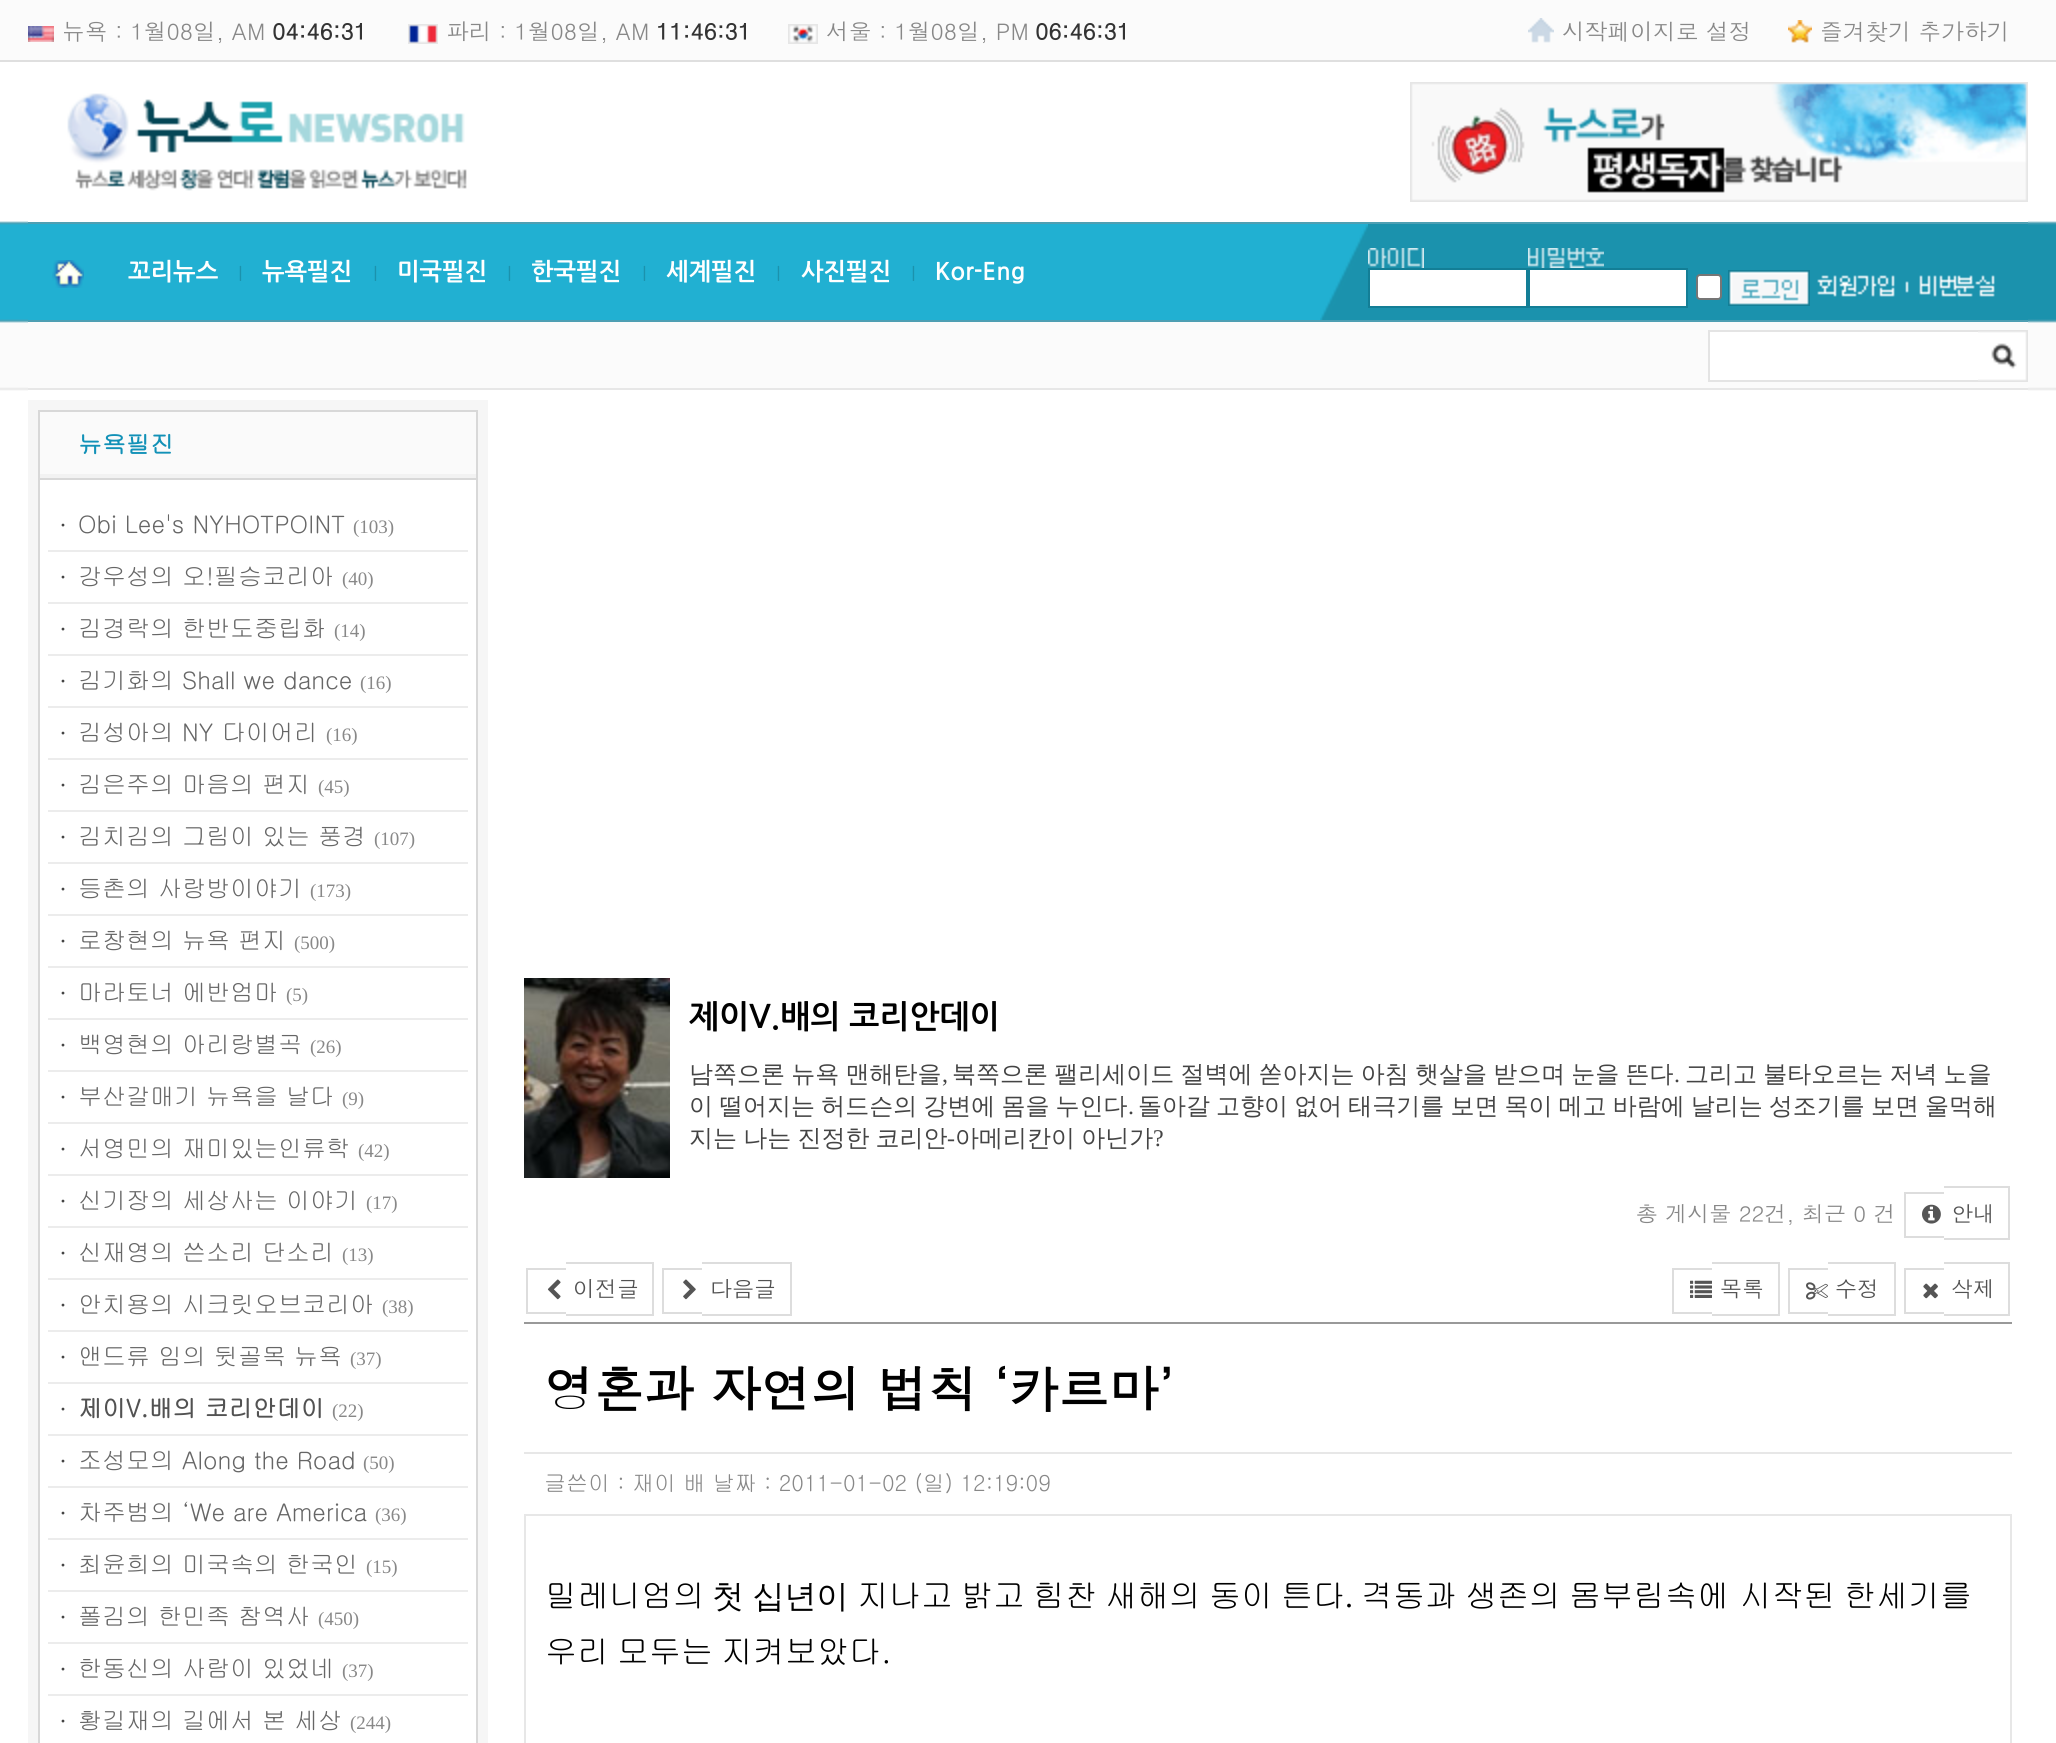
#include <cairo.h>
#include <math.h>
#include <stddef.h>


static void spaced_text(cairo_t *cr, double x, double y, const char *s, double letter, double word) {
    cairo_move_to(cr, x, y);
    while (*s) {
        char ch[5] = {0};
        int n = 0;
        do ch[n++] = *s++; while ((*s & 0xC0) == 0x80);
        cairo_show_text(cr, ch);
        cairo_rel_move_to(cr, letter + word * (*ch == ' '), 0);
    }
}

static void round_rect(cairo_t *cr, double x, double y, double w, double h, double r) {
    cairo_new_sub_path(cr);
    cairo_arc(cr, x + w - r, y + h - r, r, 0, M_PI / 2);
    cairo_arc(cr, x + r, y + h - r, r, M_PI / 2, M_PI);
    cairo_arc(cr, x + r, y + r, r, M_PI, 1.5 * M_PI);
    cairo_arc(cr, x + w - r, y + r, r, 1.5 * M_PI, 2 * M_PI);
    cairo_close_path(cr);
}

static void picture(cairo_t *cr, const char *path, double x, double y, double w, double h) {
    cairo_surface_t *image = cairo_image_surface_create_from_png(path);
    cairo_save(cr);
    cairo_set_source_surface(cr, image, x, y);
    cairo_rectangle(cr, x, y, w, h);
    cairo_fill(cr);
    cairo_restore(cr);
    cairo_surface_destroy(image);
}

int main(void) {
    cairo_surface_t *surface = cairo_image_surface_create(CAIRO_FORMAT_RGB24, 2056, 1743);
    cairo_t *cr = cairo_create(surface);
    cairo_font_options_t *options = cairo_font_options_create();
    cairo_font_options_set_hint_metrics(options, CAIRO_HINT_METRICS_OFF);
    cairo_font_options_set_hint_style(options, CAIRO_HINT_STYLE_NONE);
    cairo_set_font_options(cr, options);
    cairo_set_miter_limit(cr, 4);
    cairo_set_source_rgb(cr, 1, 1, 1);
    cairo_paint(cr);
    cairo_set_source_rgb(cr, 0.875, 0.875, 0.875);
    cairo_rectangle(cr, 0, 60, 2056, 2);
    cairo_fill(cr);
    cairo_set_source_rgb(cr, 0.984, 0.984, 0.984);
    cairo_rectangle(cr, 0, 0, 2056, 60);
    cairo_fill(cr);
    picture(cr, "img1.png", 28, 26, 26, 16);
    cairo_select_font_face(cr, "Dotum", CAIRO_FONT_SLANT_NORMAL, CAIRO_FONT_WEIGHT_NORMAL);
    cairo_set_font_size(cr, 22.75);
    cairo_set_source_rgb(cr, 0.533, 0.533, 0.533);
    cairo_move_to(cr, 62, 40);
    cairo_show_text(cr, "뉴욕 : 1월08일, AM");
    cairo_select_font_face(cr, "Dotum", CAIRO_FONT_SLANT_NORMAL, CAIRO_FONT_WEIGHT_BOLD);
    cairo_set_source_rgb(cr, 0.2, 0.2, 0.2);
    cairo_move_to(cr, 272, 40);
    cairo_show_text(cr, "04:46:31");
    picture(cr, "img2.png", 408, 24, 30, 20);
    cairo_select_font_face(cr, "Dotum", CAIRO_FONT_SLANT_NORMAL, CAIRO_FONT_WEIGHT_NORMAL);
    cairo_set_source_rgb(cr, 0.533, 0.533, 0.533);
    cairo_move_to(cr, 446, 40);
    cairo_show_text(cr, "파리 : 1월08일, AM");
    cairo_select_font_face(cr, "Dotum", CAIRO_FONT_SLANT_NORMAL, CAIRO_FONT_WEIGHT_BOLD);
    cairo_set_source_rgb(cr, 0.2, 0.2, 0.2);
    cairo_move_to(cr, 656, 40);
    cairo_show_text(cr, "11:46:31");
    picture(cr, "img3.png", 788, 24, 30, 20);
    cairo_select_font_face(cr, "Dotum", CAIRO_FONT_SLANT_NORMAL, CAIRO_FONT_WEIGHT_NORMAL);
    cairo_set_source_rgb(cr, 0.533, 0.533, 0.533);
    cairo_move_to(cr, 826, 40);
    cairo_show_text(cr, "서울 : 1월08일, PM");
    cairo_select_font_face(cr, "Dotum", CAIRO_FONT_SLANT_NORMAL, CAIRO_FONT_WEIGHT_BOLD);
    cairo_set_source_rgb(cr, 0.2, 0.2, 0.2);
    cairo_move_to(cr, 1035, 40);
    cairo_show_text(cr, "06:46:31");
    picture(cr, "img4.png", 1528, 18, 26, 25);
    cairo_select_font_face(cr, "Dotum", CAIRO_FONT_SLANT_NORMAL, CAIRO_FONT_WEIGHT_NORMAL);
    cairo_set_source_rgb(cr, 0.533, 0.533, 0.533);
    cairo_move_to(cr, 1562, 40);
    cairo_show_text(cr, "시작페이지로 설정");
    picture(cr, "img5.png", 1788, 20, 24, 23);
    cairo_move_to(cr, 1820, 40);
    cairo_show_text(cr, "즐겨찾기 추가하기");
    picture(cr, "img6.png", 0, 221, 28, 170);
    picture(cr, "img7.png", 67, 93, 400, 98);
    picture(cr, "img8.png", 1410, 82, 618, 120);
    cairo_set_source_rgb(cr, 0.306, 0.624, 0.702);
    cairo_rectangle(cr, 28, 222, 2000, 2);
    cairo_fill(cr);
    cairo_set_source_rgb(cr, 0.129, 0.69, 0.824);
    cairo_rectangle(cr, 28, 224, 1340, 96);
    cairo_fill(cr);
    picture(cr, "img9.png", 52, 260, 32, 28);
    cairo_select_font_face(cr, "NanumGothic", CAIRO_FONT_SLANT_NORMAL, CAIRO_FONT_WEIGHT_BOLD);
    cairo_set_font_size(cr, 24);
    cairo_set_source_rgb(cr, 1, 1, 1);
    cairo_move_to(cr, 128, 280);
    cairo_show_text(cr, "꼬리뉴스");
    cairo_select_font_face(cr, "NanumGothic", CAIRO_FONT_SLANT_NORMAL, CAIRO_FONT_WEIGHT_NORMAL);
    cairo_set_font_size(cr, 19);
    cairo_set_source_rgb(cr, 0.106, 0.573, 0.678);
    cairo_move_to(cr, 238, 281);
    cairo_show_text(cr, "l");
    cairo_select_font_face(cr, "NanumGothic", CAIRO_FONT_SLANT_NORMAL, CAIRO_FONT_WEIGHT_BOLD);
    cairo_set_font_size(cr, 24);
    cairo_set_source_rgb(cr, 1, 1, 1);
    cairo_move_to(cr, 262, 280);
    cairo_show_text(cr, "뉴욕필진");
    cairo_select_font_face(cr, "NanumGothic", CAIRO_FONT_SLANT_NORMAL, CAIRO_FONT_WEIGHT_NORMAL);
    cairo_set_font_size(cr, 19);
    cairo_set_source_rgb(cr, 0.106, 0.573, 0.678);
    cairo_move_to(cr, 373, 281);
    cairo_show_text(cr, "l");
    cairo_select_font_face(cr, "NanumGothic", CAIRO_FONT_SLANT_NORMAL, CAIRO_FONT_WEIGHT_BOLD);
    cairo_set_font_size(cr, 24);
    cairo_set_source_rgb(cr, 1, 1, 1);
    cairo_move_to(cr, 397, 280);
    cairo_show_text(cr, "미국필진");
    cairo_select_font_face(cr, "NanumGothic", CAIRO_FONT_SLANT_NORMAL, CAIRO_FONT_WEIGHT_NORMAL);
    cairo_set_font_size(cr, 19);
    cairo_set_source_rgb(cr, 0.106, 0.573, 0.678);
    cairo_move_to(cr, 507, 281);
    cairo_show_text(cr, "l");
    cairo_select_font_face(cr, "NanumGothic", CAIRO_FONT_SLANT_NORMAL, CAIRO_FONT_WEIGHT_BOLD);
    cairo_set_font_size(cr, 24);
    cairo_set_source_rgb(cr, 1, 1, 1);
    cairo_move_to(cr, 531, 280);
    cairo_show_text(cr, "한국필진");
    cairo_select_font_face(cr, "NanumGothic", CAIRO_FONT_SLANT_NORMAL, CAIRO_FONT_WEIGHT_NORMAL);
    cairo_set_font_size(cr, 19);
    cairo_set_source_rgb(cr, 0.106, 0.573, 0.678);
    cairo_move_to(cr, 642, 281);
    cairo_show_text(cr, "l");
    cairo_select_font_face(cr, "NanumGothic", CAIRO_FONT_SLANT_NORMAL, CAIRO_FONT_WEIGHT_BOLD);
    cairo_set_font_size(cr, 24);
    cairo_set_source_rgb(cr, 1, 1, 1);
    cairo_move_to(cr, 666, 280);
    cairo_show_text(cr, "세계필진");
    cairo_select_font_face(cr, "NanumGothic", CAIRO_FONT_SLANT_NORMAL, CAIRO_FONT_WEIGHT_NORMAL);
    cairo_set_font_size(cr, 19);
    cairo_set_source_rgb(cr, 0.106, 0.573, 0.678);
    cairo_move_to(cr, 776, 281);
    cairo_show_text(cr, "l");
    cairo_select_font_face(cr, "NanumGothic", CAIRO_FONT_SLANT_NORMAL, CAIRO_FONT_WEIGHT_BOLD);
    cairo_set_font_size(cr, 24);
    cairo_set_source_rgb(cr, 1, 1, 1);
    cairo_move_to(cr, 801, 280);
    cairo_show_text(cr, "사진필진");
    cairo_select_font_face(cr, "NanumGothic", CAIRO_FONT_SLANT_NORMAL, CAIRO_FONT_WEIGHT_NORMAL);
    cairo_set_font_size(cr, 19);
    cairo_set_source_rgb(cr, 0.106, 0.573, 0.678);
    cairo_move_to(cr, 911, 281);
    cairo_show_text(cr, "l");
    cairo_select_font_face(cr, "NanumGothic", CAIRO_FONT_SLANT_NORMAL, CAIRO_FONT_WEIGHT_BOLD);
    cairo_set_font_size(cr, 24);
    cairo_set_source_rgb(cr, 1, 1, 1);
    cairo_move_to(cr, 935, 280);
    cairo_show_text(cr, "Kor-Eng");
    picture(cr, "img10.png", 1320, 225, 48, 95);
    cairo_set_source_rgb(cr, 0.106, 0.573, 0.678);
    cairo_rectangle(cr, 1368, 224, 660, 96);
    cairo_fill(cr);
    picture(cr, "img11.png", 1368, 248, 56, 20);
    picture(cr, "img12.png", 1528, 248, 76, 20);
    cairo_set_source_rgb(cr, 1, 1, 1);
    cairo_rectangle(cr, 1369, 269, 158, 38);
    cairo_fill_preserve(cr);
    cairo_set_source_rgb(cr, 0.075, 0.494, 0.588);
    cairo_stroke(cr);
    cairo_set_source_rgb(cr, 1, 1, 1);
    cairo_rectangle(cr, 1529, 269, 158, 38);
    cairo_fill_preserve(cr);
    cairo_set_source_rgb(cr, 0.075, 0.494, 0.588);
    cairo_stroke(cr);
    cairo_set_source_rgb(cr, 1, 1, 1);
    round_rect(cr, 1697, 275, 24, 24, 3);
    cairo_fill_preserve(cr);
    cairo_set_source_rgb(cr, 0.463, 0.463, 0.463);
    cairo_stroke(cr);
    picture(cr, "img13.png", 1728, 270, 82, 36);
    picture(cr, "img14.png", 1817, 275, 78, 22);
    picture(cr, "img15.png", 1905, 281, 4, 12);
    picture(cr, "img16.png", 1919, 275, 76, 22);
    cairo_set_source_rgb(cr, 0.306, 0.624, 0.702);
    cairo_rectangle(cr, 28, 320, 2000, 2);
    cairo_fill(cr);
    cairo_set_source_rgb(cr, 0.984, 0.984, 0.984);
    cairo_rectangle(cr, 28, 322, 2000, 66);
    cairo_fill(cr);
    cairo_set_source_rgb(cr, 0.906, 0.906, 0.906);
    cairo_rectangle(cr, 28, 388, 2000, 2);
    cairo_fill(cr);
    cairo_set_source_rgb(cr, 1, 1, 1);
    cairo_rectangle(cr, 1710, 332, 268, 48);
    cairo_fill(cr);
    cairo_set_source_rgb(cr, 0.894, 0.894, 0.894);
    cairo_rectangle(cr, 1708, 330, 270, 2);
    cairo_fill(cr);
    cairo_rectangle(cr, 1708, 380, 270, 2);
    cairo_fill(cr);
    cairo_rectangle(cr, 1708, 330, 2, 52);
    cairo_fill(cr);
    picture(cr, "img17.png", 1978, 330, 50, 52);
    picture(cr, "img18.png", 2028, 221, 28, 170);
    cairo_set_source_rgb(cr, 0.961, 0.961, 0.961);
    cairo_rectangle(cr, 28, 400, 460, 1343);
    cairo_fill(cr);
    cairo_set_source_rgb(cr, 0.847, 0.847, 0.847);
    cairo_rectangle(cr, 38, 410, 440, 1333);
    cairo_fill(cr);
    cairo_set_source_rgb(cr, 0.98, 0.98, 0.98);
    cairo_rectangle(cr, 40, 412, 436, 62);
    cairo_fill(cr);
    cairo_set_source_rgb(cr, 0.949, 0.949, 0.949);
    cairo_rectangle(cr, 40, 474, 436, 4);
    cairo_fill(cr);
    cairo_select_font_face(cr, "Gulim", CAIRO_FONT_SLANT_NORMAL, CAIRO_FONT_WEIGHT_BOLD);
    cairo_set_source_rgb(cr, 0.071, 0.569, 0.718);
    cairo_move_to(cr, 78, 453);
    cairo_show_text(cr, "뉴욕필진");
    cairo_set_source_rgb(cr, 1, 1, 1);
    cairo_rectangle(cr, 40, 480, 436, 1263);
    cairo_fill(cr);
    cairo_select_font_face(cr, "Liberation Serif", CAIRO_FONT_SLANT_NORMAL, CAIRO_FONT_WEIGHT_NORMAL);
    cairo_set_source_rgb(cr, 0.267, 0.267, 0.267);
    cairo_move_to(cr, 59, 533);
    cairo_show_text(cr, "·");
    cairo_select_font_face(cr, "Gulim", CAIRO_FONT_SLANT_NORMAL, CAIRO_FONT_WEIGHT_NORMAL);
    cairo_set_source_rgb(cr, 0.4, 0.4, 0.4);
    cairo_move_to(cr, 78, 533);
    cairo_show_text(cr, "Obi Lee's NYHOTPOINT");
    cairo_select_font_face(cr, "Liberation Serif", CAIRO_FONT_SLANT_NORMAL, CAIRO_FONT_WEIGHT_NORMAL);
    cairo_set_font_size(cr, 19);
    cairo_set_source_rgb(cr, 0.533, 0.533, 0.533);
    cairo_move_to(cr, 353, 533);
    cairo_show_text(cr, "(103)");
    cairo_set_source_rgb(cr, 0.925, 0.925, 0.925);
    cairo_rectangle(cr, 48, 550, 420, 2);
    cairo_fill(cr);
    cairo_set_font_size(cr, 24);
    cairo_set_source_rgb(cr, 0.267, 0.267, 0.267);
    cairo_move_to(cr, 59, 585);
    cairo_show_text(cr, "·");
    cairo_select_font_face(cr, "Gulim", CAIRO_FONT_SLANT_NORMAL, CAIRO_FONT_WEIGHT_NORMAL);
    cairo_set_source_rgb(cr, 0.4, 0.4, 0.4);
    cairo_move_to(cr, 78, 585);
    cairo_show_text(cr, "강우성의 오!필승코리아");
    cairo_select_font_face(cr, "Liberation Serif", CAIRO_FONT_SLANT_NORMAL, CAIRO_FONT_WEIGHT_NORMAL);
    cairo_set_font_size(cr, 19);
    cairo_set_source_rgb(cr, 0.533, 0.533, 0.533);
    cairo_move_to(cr, 342, 585);
    cairo_show_text(cr, "(40)");
    cairo_set_source_rgb(cr, 0.925, 0.925, 0.925);
    cairo_rectangle(cr, 48, 602, 420, 2);
    cairo_fill(cr);
    cairo_set_font_size(cr, 24);
    cairo_set_source_rgb(cr, 0.267, 0.267, 0.267);
    cairo_move_to(cr, 59, 637);
    cairo_show_text(cr, "·");
    cairo_select_font_face(cr, "Gulim", CAIRO_FONT_SLANT_NORMAL, CAIRO_FONT_WEIGHT_NORMAL);
    cairo_set_source_rgb(cr, 0.4, 0.4, 0.4);
    cairo_move_to(cr, 78, 637);
    cairo_show_text(cr, "김경락의 한반도중립화");
    cairo_select_font_face(cr, "Liberation Serif", CAIRO_FONT_SLANT_NORMAL, CAIRO_FONT_WEIGHT_NORMAL);
    cairo_set_font_size(cr, 19);
    cairo_set_source_rgb(cr, 0.533, 0.533, 0.533);
    cairo_move_to(cr, 334, 637);
    cairo_show_text(cr, "(14)");
    cairo_set_source_rgb(cr, 0.925, 0.925, 0.925);
    cairo_rectangle(cr, 48, 654, 420, 2);
    cairo_fill(cr);
    cairo_set_font_size(cr, 24);
    cairo_set_source_rgb(cr, 0.267, 0.267, 0.267);
    cairo_move_to(cr, 59, 689);
    cairo_show_text(cr, "·");
    cairo_select_font_face(cr, "Gulim", CAIRO_FONT_SLANT_NORMAL, CAIRO_FONT_WEIGHT_NORMAL);
    cairo_set_source_rgb(cr, 0.4, 0.4, 0.4);
    cairo_move_to(cr, 78, 689);
    cairo_show_text(cr, "김기화의 Shall we dance");
    cairo_select_font_face(cr, "Liberation Serif", CAIRO_FONT_SLANT_NORMAL, CAIRO_FONT_WEIGHT_NORMAL);
    cairo_set_font_size(cr, 19);
    cairo_set_source_rgb(cr, 0.533, 0.533, 0.533);
    cairo_move_to(cr, 360, 689);
    cairo_show_text(cr, "(16)");
    cairo_set_source_rgb(cr, 0.925, 0.925, 0.925);
    cairo_rectangle(cr, 48, 706, 420, 2);
    cairo_fill(cr);
    cairo_set_font_size(cr, 24);
    cairo_set_source_rgb(cr, 0.267, 0.267, 0.267);
    cairo_move_to(cr, 59, 741);
    cairo_show_text(cr, "·");
    cairo_select_font_face(cr, "Gulim", CAIRO_FONT_SLANT_NORMAL, CAIRO_FONT_WEIGHT_NORMAL);
    cairo_set_source_rgb(cr, 0.4, 0.4, 0.4);
    cairo_move_to(cr, 78, 741);
    cairo_show_text(cr, "김성아의 NY 다이어리");
    cairo_select_font_face(cr, "Liberation Serif", CAIRO_FONT_SLANT_NORMAL, CAIRO_FONT_WEIGHT_NORMAL);
    cairo_set_font_size(cr, 19);
    cairo_set_source_rgb(cr, 0.533, 0.533, 0.533);
    cairo_move_to(cr, 326, 741);
    cairo_show_text(cr, "(16)");
    cairo_set_source_rgb(cr, 0.925, 0.925, 0.925);
    cairo_rectangle(cr, 48, 758, 420, 2);
    cairo_fill(cr);
    cairo_set_font_size(cr, 24);
    cairo_set_source_rgb(cr, 0.267, 0.267, 0.267);
    cairo_move_to(cr, 59, 793);
    cairo_show_text(cr, "·");
    cairo_select_font_face(cr, "Gulim", CAIRO_FONT_SLANT_NORMAL, CAIRO_FONT_WEIGHT_NORMAL);
    cairo_set_source_rgb(cr, 0.4, 0.4, 0.4);
    cairo_move_to(cr, 78, 793);
    cairo_show_text(cr, "김은주의 마음의 편지");
    cairo_select_font_face(cr, "Liberation Serif", CAIRO_FONT_SLANT_NORMAL, CAIRO_FONT_WEIGHT_NORMAL);
    cairo_set_font_size(cr, 19);
    cairo_set_source_rgb(cr, 0.533, 0.533, 0.533);
    cairo_move_to(cr, 318, 793);
    cairo_show_text(cr, "(45)");
    cairo_set_source_rgb(cr, 0.925, 0.925, 0.925);
    cairo_rectangle(cr, 48, 810, 420, 2);
    cairo_fill(cr);
    cairo_set_font_size(cr, 24);
    cairo_set_source_rgb(cr, 0.267, 0.267, 0.267);
    cairo_move_to(cr, 59, 845);
    cairo_show_text(cr, "·");
    cairo_select_font_face(cr, "Gulim", CAIRO_FONT_SLANT_NORMAL, CAIRO_FONT_WEIGHT_NORMAL);
    cairo_set_source_rgb(cr, 0.4, 0.4, 0.4);
    cairo_move_to(cr, 78, 845);
    cairo_show_text(cr, "김치김의 그림이 있는 풍경");
    cairo_select_font_face(cr, "Liberation Serif", CAIRO_FONT_SLANT_NORMAL, CAIRO_FONT_WEIGHT_NORMAL);
    cairo_set_font_size(cr, 19);
    cairo_set_source_rgb(cr, 0.533, 0.533, 0.533);
    cairo_move_to(cr, 374, 845);
    cairo_show_text(cr, "(107)");
    cairo_set_source_rgb(cr, 0.925, 0.925, 0.925);
    cairo_rectangle(cr, 48, 862, 420, 2);
    cairo_fill(cr);
    cairo_set_font_size(cr, 24);
    cairo_set_source_rgb(cr, 0.267, 0.267, 0.267);
    cairo_move_to(cr, 59, 897);
    cairo_show_text(cr, "·");
    cairo_select_font_face(cr, "Gulim", CAIRO_FONT_SLANT_NORMAL, CAIRO_FONT_WEIGHT_NORMAL);
    cairo_set_source_rgb(cr, 0.4, 0.4, 0.4);
    cairo_move_to(cr, 78, 897);
    cairo_show_text(cr, "등촌의 사랑방이야기");
    cairo_select_font_face(cr, "Liberation Serif", CAIRO_FONT_SLANT_NORMAL, CAIRO_FONT_WEIGHT_NORMAL);
    cairo_set_font_size(cr, 19);
    cairo_set_source_rgb(cr, 0.533, 0.533, 0.533);
    cairo_move_to(cr, 310, 897);
    cairo_show_text(cr, "(173)");
    cairo_set_source_rgb(cr, 0.925, 0.925, 0.925);
    cairo_rectangle(cr, 48, 914, 420, 2);
    cairo_fill(cr);
    cairo_set_font_size(cr, 24);
    cairo_set_source_rgb(cr, 0.267, 0.267, 0.267);
    cairo_move_to(cr, 59, 949);
    cairo_show_text(cr, "·");
    cairo_select_font_face(cr, "Gulim", CAIRO_FONT_SLANT_NORMAL, CAIRO_FONT_WEIGHT_NORMAL);
    cairo_set_source_rgb(cr, 0.4, 0.4, 0.4);
    cairo_move_to(cr, 78, 949);
    cairo_show_text(cr, "로창현의 뉴욕 편지");
    cairo_select_font_face(cr, "Liberation Serif", CAIRO_FONT_SLANT_NORMAL, CAIRO_FONT_WEIGHT_NORMAL);
    cairo_set_font_size(cr, 19);
    cairo_set_source_rgb(cr, 0.533, 0.533, 0.533);
    cairo_move_to(cr, 294, 949);
    cairo_show_text(cr, "(500)");
    cairo_set_source_rgb(cr, 0.925, 0.925, 0.925);
    cairo_rectangle(cr, 48, 966, 420, 2);
    cairo_fill(cr);
    cairo_set_font_size(cr, 24);
    cairo_set_source_rgb(cr, 0.267, 0.267, 0.267);
    cairo_move_to(cr, 59, 1001);
    cairo_show_text(cr, "·");
    cairo_select_font_face(cr, "Gulim", CAIRO_FONT_SLANT_NORMAL, CAIRO_FONT_WEIGHT_NORMAL);
    cairo_set_source_rgb(cr, 0.4, 0.4, 0.4);
    cairo_move_to(cr, 78, 1001);
    cairo_show_text(cr, "마라토너 에반엄마");
    cairo_select_font_face(cr, "Liberation Serif", CAIRO_FONT_SLANT_NORMAL, CAIRO_FONT_WEIGHT_NORMAL);
    cairo_set_font_size(cr, 19);
    cairo_set_source_rgb(cr, 0.533, 0.533, 0.533);
    cairo_move_to(cr, 286, 1001);
    cairo_show_text(cr, "(5)");
    cairo_set_source_rgb(cr, 0.925, 0.925, 0.925);
    cairo_rectangle(cr, 48, 1018, 420, 2);
    cairo_fill(cr);
    cairo_set_font_size(cr, 24);
    cairo_set_source_rgb(cr, 0.267, 0.267, 0.267);
    cairo_move_to(cr, 59, 1053);
    cairo_show_text(cr, "·");
    cairo_select_font_face(cr, "Gulim", CAIRO_FONT_SLANT_NORMAL, CAIRO_FONT_WEIGHT_NORMAL);
    cairo_set_source_rgb(cr, 0.4, 0.4, 0.4);
    cairo_move_to(cr, 78, 1053);
    cairo_show_text(cr, "백영현의 아리랑별곡");
    cairo_select_font_face(cr, "Liberation Serif", CAIRO_FONT_SLANT_NORMAL, CAIRO_FONT_WEIGHT_NORMAL);
    cairo_set_font_size(cr, 19);
    cairo_set_source_rgb(cr, 0.533, 0.533, 0.533);
    cairo_move_to(cr, 310, 1053);
    cairo_show_text(cr, "(26)");
    cairo_set_source_rgb(cr, 0.925, 0.925, 0.925);
    cairo_rectangle(cr, 48, 1070, 420, 2);
    cairo_fill(cr);
    cairo_set_font_size(cr, 24);
    cairo_set_source_rgb(cr, 0.267, 0.267, 0.267);
    cairo_move_to(cr, 59, 1105);
    cairo_show_text(cr, "·");
    cairo_select_font_face(cr, "Gulim", CAIRO_FONT_SLANT_NORMAL, CAIRO_FONT_WEIGHT_NORMAL);
    cairo_set_source_rgb(cr, 0.4, 0.4, 0.4);
    cairo_move_to(cr, 78, 1105);
    cairo_show_text(cr, "부산갈매기 뉴욕을 날다");
    cairo_select_font_face(cr, "Liberation Serif", CAIRO_FONT_SLANT_NORMAL, CAIRO_FONT_WEIGHT_NORMAL);
    cairo_set_font_size(cr, 19);
    cairo_set_source_rgb(cr, 0.533, 0.533, 0.533);
    cairo_move_to(cr, 342, 1105);
    cairo_show_text(cr, "(9)");
    cairo_set_source_rgb(cr, 0.925, 0.925, 0.925);
    cairo_rectangle(cr, 48, 1122, 420, 2);
    cairo_fill(cr);
    cairo_set_font_size(cr, 24);
    cairo_set_source_rgb(cr, 0.267, 0.267, 0.267);
    cairo_move_to(cr, 59, 1157);
    cairo_show_text(cr, "·");
    cairo_select_font_face(cr, "Gulim", CAIRO_FONT_SLANT_NORMAL, CAIRO_FONT_WEIGHT_NORMAL);
    cairo_set_source_rgb(cr, 0.4, 0.4, 0.4);
    cairo_move_to(cr, 78, 1157);
    cairo_show_text(cr, "서영민의 재미있는인류학");
    cairo_select_font_face(cr, "Liberation Serif", CAIRO_FONT_SLANT_NORMAL, CAIRO_FONT_WEIGHT_NORMAL);
    cairo_set_font_size(cr, 19);
    cairo_set_source_rgb(cr, 0.533, 0.533, 0.533);
    cairo_move_to(cr, 358, 1157);
    cairo_show_text(cr, "(42)");
    cairo_set_source_rgb(cr, 0.925, 0.925, 0.925);
    cairo_rectangle(cr, 48, 1174, 420, 2);
    cairo_fill(cr);
    cairo_set_font_size(cr, 24);
    cairo_set_source_rgb(cr, 0.267, 0.267, 0.267);
    cairo_move_to(cr, 59, 1209);
    cairo_show_text(cr, "·");
    cairo_select_font_face(cr, "Gulim", CAIRO_FONT_SLANT_NORMAL, CAIRO_FONT_WEIGHT_NORMAL);
    cairo_set_source_rgb(cr, 0.4, 0.4, 0.4);
    cairo_move_to(cr, 78, 1209);
    cairo_show_text(cr, "신기장의 세상사는 이야기");
    cairo_select_font_face(cr, "Liberation Serif", CAIRO_FONT_SLANT_NORMAL, CAIRO_FONT_WEIGHT_NORMAL);
    cairo_set_font_size(cr, 19);
    cairo_set_source_rgb(cr, 0.533, 0.533, 0.533);
    cairo_move_to(cr, 366, 1209);
    cairo_show_text(cr, "(17)");
    cairo_set_source_rgb(cr, 0.925, 0.925, 0.925);
    cairo_rectangle(cr, 48, 1226, 420, 2);
    cairo_fill(cr);
    cairo_set_font_size(cr, 24);
    cairo_set_source_rgb(cr, 0.267, 0.267, 0.267);
    cairo_move_to(cr, 59, 1261);
    cairo_show_text(cr, "·");
    cairo_select_font_face(cr, "Gulim", CAIRO_FONT_SLANT_NORMAL, CAIRO_FONT_WEIGHT_NORMAL);
    cairo_set_source_rgb(cr, 0.4, 0.4, 0.4);
    cairo_move_to(cr, 78, 1261);
    cairo_show_text(cr, "신재영의 쓴소리 단소리");
    cairo_select_font_face(cr, "Liberation Serif", CAIRO_FONT_SLANT_NORMAL, CAIRO_FONT_WEIGHT_NORMAL);
    cairo_set_font_size(cr, 19);
    cairo_set_source_rgb(cr, 0.533, 0.533, 0.533);
    cairo_move_to(cr, 342, 1261);
    cairo_show_text(cr, "(13)");
    cairo_set_source_rgb(cr, 0.925, 0.925, 0.925);
    cairo_rectangle(cr, 48, 1278, 420, 2);
    cairo_fill(cr);
    cairo_set_font_size(cr, 24);
    cairo_set_source_rgb(cr, 0.267, 0.267, 0.267);
    cairo_move_to(cr, 59, 1313);
    cairo_show_text(cr, "·");
    cairo_select_font_face(cr, "Gulim", CAIRO_FONT_SLANT_NORMAL, CAIRO_FONT_WEIGHT_NORMAL);
    cairo_set_source_rgb(cr, 0.4, 0.4, 0.4);
    cairo_move_to(cr, 78, 1313);
    cairo_show_text(cr, "안치용의 시크릿오브코리아");
    cairo_select_font_face(cr, "Liberation Serif", CAIRO_FONT_SLANT_NORMAL, CAIRO_FONT_WEIGHT_NORMAL);
    cairo_set_font_size(cr, 19);
    cairo_set_source_rgb(cr, 0.533, 0.533, 0.533);
    cairo_move_to(cr, 382, 1313);
    cairo_show_text(cr, "(38)");
    cairo_set_source_rgb(cr, 0.925, 0.925, 0.925);
    cairo_rectangle(cr, 48, 1330, 420, 2);
    cairo_fill(cr);
    cairo_set_font_size(cr, 24);
    cairo_set_source_rgb(cr, 0.267, 0.267, 0.267);
    cairo_move_to(cr, 59, 1365);
    cairo_show_text(cr, "·");
    cairo_select_font_face(cr, "Gulim", CAIRO_FONT_SLANT_NORMAL, CAIRO_FONT_WEIGHT_NORMAL);
    cairo_set_source_rgb(cr, 0.4, 0.4, 0.4);
    cairo_move_to(cr, 78, 1365);
    cairo_show_text(cr, "앤드류 임의 뒷골목 뉴욕");
    cairo_select_font_face(cr, "Liberation Serif", CAIRO_FONT_SLANT_NORMAL, CAIRO_FONT_WEIGHT_NORMAL);
    cairo_set_font_size(cr, 19);
    cairo_set_source_rgb(cr, 0.533, 0.533, 0.533);
    cairo_move_to(cr, 350, 1365);
    cairo_show_text(cr, "(37)");
    cairo_set_source_rgb(cr, 0.925, 0.925, 0.925);
    cairo_rectangle(cr, 48, 1382, 420, 2);
    cairo_fill(cr);
    cairo_set_font_size(cr, 24);
    cairo_set_source_rgb(cr, 0.267, 0.267, 0.267);
    cairo_move_to(cr, 59, 1417);
    cairo_show_text(cr, "·");
    cairo_select_font_face(cr, "Gulim", CAIRO_FONT_SLANT_NORMAL, CAIRO_FONT_WEIGHT_BOLD);
    cairo_set_source_rgb(cr, 0.322, 0.322, 0.322);
    cairo_move_to(cr, 78, 1417);
    cairo_show_text(cr, "제이V.배의 코리안데이");
    cairo_select_font_face(cr, "Liberation Serif", CAIRO_FONT_SLANT_NORMAL, CAIRO_FONT_WEIGHT_NORMAL);
    cairo_set_font_size(cr, 19);
    cairo_set_source_rgb(cr, 0.533, 0.533, 0.533);
    cairo_move_to(cr, 332, 1417);
    cairo_show_text(cr, "(22)");
    cairo_set_source_rgb(cr, 0.925, 0.925, 0.925);
    cairo_rectangle(cr, 48, 1434, 420, 2);
    cairo_fill(cr);
    cairo_set_font_size(cr, 24);
    cairo_set_source_rgb(cr, 0.267, 0.267, 0.267);
    cairo_move_to(cr, 59, 1469);
    cairo_show_text(cr, "·");
    cairo_select_font_face(cr, "Gulim", CAIRO_FONT_SLANT_NORMAL, CAIRO_FONT_WEIGHT_NORMAL);
    cairo_set_source_rgb(cr, 0.4, 0.4, 0.4);
    cairo_move_to(cr, 78, 1469);
    cairo_show_text(cr, "조성모의 Along the Road");
    cairo_select_font_face(cr, "Liberation Serif", CAIRO_FONT_SLANT_NORMAL, CAIRO_FONT_WEIGHT_NORMAL);
    cairo_set_font_size(cr, 19);
    cairo_set_source_rgb(cr, 0.533, 0.533, 0.533);
    cairo_move_to(cr, 363, 1469);
    cairo_show_text(cr, "(50)");
    cairo_set_source_rgb(cr, 0.925, 0.925, 0.925);
    cairo_rectangle(cr, 48, 1486, 420, 2);
    cairo_fill(cr);
    cairo_set_font_size(cr, 24);
    cairo_set_source_rgb(cr, 0.267, 0.267, 0.267);
    cairo_move_to(cr, 59, 1521);
    cairo_show_text(cr, "·");
    cairo_select_font_face(cr, "Gulim", CAIRO_FONT_SLANT_NORMAL, CAIRO_FONT_WEIGHT_NORMAL);
    cairo_set_source_rgb(cr, 0.4, 0.4, 0.4);
    cairo_move_to(cr, 78, 1521);
    cairo_show_text(cr, "차주범의 ‘We are America");
    cairo_select_font_face(cr, "Liberation Serif", CAIRO_FONT_SLANT_NORMAL, CAIRO_FONT_WEIGHT_NORMAL);
    cairo_set_font_size(cr, 19);
    cairo_set_source_rgb(cr, 0.533, 0.533, 0.533);
    cairo_move_to(cr, 375, 1521);
    cairo_show_text(cr, "(36)");
    cairo_set_source_rgb(cr, 0.925, 0.925, 0.925);
    cairo_rectangle(cr, 48, 1538, 420, 2);
    cairo_fill(cr);
    cairo_set_font_size(cr, 24);
    cairo_set_source_rgb(cr, 0.267, 0.267, 0.267);
    cairo_move_to(cr, 59, 1573);
    cairo_show_text(cr, "·");
    cairo_select_font_face(cr, "Gulim", CAIRO_FONT_SLANT_NORMAL, CAIRO_FONT_WEIGHT_NORMAL);
    cairo_set_source_rgb(cr, 0.4, 0.4, 0.4);
    cairo_move_to(cr, 78, 1573);
    cairo_show_text(cr, "최윤희의 미국속의 한국인");
    cairo_select_font_face(cr, "Liberation Serif", CAIRO_FONT_SLANT_NORMAL, CAIRO_FONT_WEIGHT_NORMAL);
    cairo_set_font_size(cr, 19);
    cairo_set_source_rgb(cr, 0.533, 0.533, 0.533);
    cairo_move_to(cr, 366, 1573);
    cairo_show_text(cr, "(15)");
    cairo_set_source_rgb(cr, 0.925, 0.925, 0.925);
    cairo_rectangle(cr, 48, 1590, 420, 2);
    cairo_fill(cr);
    cairo_set_font_size(cr, 24);
    cairo_set_source_rgb(cr, 0.267, 0.267, 0.267);
    cairo_move_to(cr, 59, 1625);
    cairo_show_text(cr, "·");
    cairo_select_font_face(cr, "Gulim", CAIRO_FONT_SLANT_NORMAL, CAIRO_FONT_WEIGHT_NORMAL);
    cairo_set_source_rgb(cr, 0.4, 0.4, 0.4);
    cairo_move_to(cr, 78, 1625);
    cairo_show_text(cr, "폴김의 한민족 참역사");
    cairo_select_font_face(cr, "Liberation Serif", CAIRO_FONT_SLANT_NORMAL, CAIRO_FONT_WEIGHT_NORMAL);
    cairo_set_font_size(cr, 19);
    cairo_set_source_rgb(cr, 0.533, 0.533, 0.533);
    cairo_move_to(cr, 318, 1625);
    cairo_show_text(cr, "(450)");
    cairo_set_source_rgb(cr, 0.925, 0.925, 0.925);
    cairo_rectangle(cr, 48, 1642, 420, 2);
    cairo_fill(cr);
    cairo_set_font_size(cr, 24);
    cairo_set_source_rgb(cr, 0.267, 0.267, 0.267);
    cairo_move_to(cr, 59, 1677);
    cairo_show_text(cr, "·");
    cairo_select_font_face(cr, "Gulim", CAIRO_FONT_SLANT_NORMAL, CAIRO_FONT_WEIGHT_NORMAL);
    cairo_set_source_rgb(cr, 0.4, 0.4, 0.4);
    cairo_move_to(cr, 78, 1677);
    cairo_show_text(cr, "한동신의 사람이 있었네");
    cairo_select_font_face(cr, "Liberation Serif", CAIRO_FONT_SLANT_NORMAL, CAIRO_FONT_WEIGHT_NORMAL);
    cairo_set_font_size(cr, 19);
    cairo_set_source_rgb(cr, 0.533, 0.533, 0.533);
    cairo_move_to(cr, 342, 1677);
    cairo_show_text(cr, "(37)");
    cairo_set_source_rgb(cr, 0.925, 0.925, 0.925);
    cairo_rectangle(cr, 48, 1694, 420, 2);
    cairo_fill(cr);
    cairo_set_font_size(cr, 24);
    cairo_set_source_rgb(cr, 0.267, 0.267, 0.267);
    cairo_move_to(cr, 59, 1729);
    cairo_show_text(cr, "·");
    cairo_select_font_face(cr, "Gulim", CAIRO_FONT_SLANT_NORMAL, CAIRO_FONT_WEIGHT_NORMAL);
    cairo_set_source_rgb(cr, 0.4, 0.4, 0.4);
    cairo_move_to(cr, 78, 1729);
    cairo_show_text(cr, "황길재의 길에서 본 세상");
    cairo_select_font_face(cr, "Liberation Serif", CAIRO_FONT_SLANT_NORMAL, CAIRO_FONT_WEIGHT_NORMAL);
    cairo_set_font_size(cr, 19);
    cairo_set_source_rgb(cr, 0.533, 0.533, 0.533);
    cairo_move_to(cr, 350, 1729);
    cairo_show_text(cr, "(244)");
    picture(cr, "img19.png", 524, 978, 146, 200);
    cairo_select_font_face(cr, "NanumGothic", CAIRO_FONT_SLANT_NORMAL, CAIRO_FONT_WEIGHT_BOLD);
    cairo_set_font_size(cr, 32);
    cairo_set_source_rgb(cr, 0, 0, 0);
    cairo_move_to(cr, 689, 1028);
    cairo_show_text(cr, "제이V.배의 코리안데이");
    cairo_select_font_face(cr, "WenQuanYi Zen Hei Medium", CAIRO_FONT_SLANT_NORMAL, CAIRO_FONT_WEIGHT_NORMAL);
    cairo_set_font_size(cr, 24);
    cairo_set_source_rgb(cr, 0.267, 0.267, 0.267);
    spaced_text(cr, 689, 1082, "남쪽으론 뉴욕 맨해탄을", 0, -1);
    cairo_select_font_face(cr, "Liberation Serif", CAIRO_FONT_SLANT_NORMAL, CAIRO_FONT_WEIGHT_NORMAL);
    cairo_move_to(cr, 942, 1082);
    cairo_show_text(cr, ",");
    cairo_select_font_face(cr, "WenQuanYi Zen Hei Medium", CAIRO_FONT_SLANT_NORMAL, CAIRO_FONT_WEIGHT_NORMAL);
    spaced_text(cr, 952, 1082, "북쪽으론 팰리세이드 절벽에 쏟아지는 아침 햇살을 받으며 눈을 뜬다", 0, -1);
    cairo_select_font_face(cr, "Liberation Serif", CAIRO_FONT_SLANT_NORMAL, CAIRO_FONT_WEIGHT_NORMAL);
    cairo_move_to(cr, 1674, 1082);
    cairo_show_text(cr, ".");
    cairo_select_font_face(cr, "WenQuanYi Zen Hei Medium", CAIRO_FONT_SLANT_NORMAL, CAIRO_FONT_WEIGHT_NORMAL);
    spaced_text(cr, 1685, 1082, "그리고 불타오르는 저녁 노을", 0, -1);
    spaced_text(cr, 689, 1114, "이 떨어지는 허드슨의 강변에 몸을 누인다", 0, -1.1);
    cairo_select_font_face(cr, "Liberation Serif", CAIRO_FONT_SLANT_NORMAL, CAIRO_FONT_WEIGHT_NORMAL);
    cairo_move_to(cr, 1128, 1114);
    cairo_show_text(cr, ".");
    cairo_select_font_face(cr, "WenQuanYi Zen Hei Medium", CAIRO_FONT_SLANT_NORMAL, CAIRO_FONT_WEIGHT_NORMAL);
    spaced_text(cr, 1138, 1114, "돌아갈 고향이 없어 태극기를 보면 목이 메고 바람에 날리는 성조기를 보면 울먹해", 0, -1.1);
    spaced_text(cr, 689, 1146, "지는 나는 진정한 코리안", 0, -1);
    cairo_select_font_face(cr, "Liberation Serif", CAIRO_FONT_SLANT_NORMAL, CAIRO_FONT_WEIGHT_NORMAL);
    cairo_move_to(cr, 947, 1146);
    cairo_show_text(cr, "-");
    cairo_select_font_face(cr, "WenQuanYi Zen Hei Medium", CAIRO_FONT_SLANT_NORMAL, CAIRO_FONT_WEIGHT_NORMAL);
    spaced_text(cr, 955, 1146, "아메리칸이 아닌가", 0, -1);
    cairo_select_font_face(cr, "Liberation Serif", CAIRO_FONT_SLANT_NORMAL, CAIRO_FONT_WEIGHT_NORMAL);
    cairo_move_to(cr, 1153, 1146);
    cairo_show_text(cr, "?");
    cairo_select_font_face(cr, "Dotum", CAIRO_FONT_SLANT_NORMAL, CAIRO_FONT_WEIGHT_NORMAL);
    cairo_set_font_size(cr, 22);
    cairo_set_source_rgb(cr, 0.533, 0.533, 0.533);
    cairo_move_to(cr, 1636, 1222);
    cairo_show_text(cr, "총 게시물 22건, 최근 0 건");
    cairo_set_source_rgb(cr, 0.867, 0.867, 0.867);
    cairo_rectangle(cr, 1904, 1192, 40, 2);
    cairo_fill(cr);
    cairo_rectangle(cr, 1904, 1236, 40, 2);
    cairo_fill(cr);
    cairo_rectangle(cr, 1904, 1192, 2, 46);
    cairo_fill(cr);
    cairo_rectangle(cr, 1944, 1186, 66, 2);
    cairo_fill(cr);
    cairo_rectangle(cr, 2008, 1186, 2, 54);
    cairo_fill(cr);
    cairo_rectangle(cr, 1944, 1238, 66, 2);
    cairo_fill(cr);
    picture(cr, "img20.png", 1922, 1204, 19, 20);
    cairo_set_source_rgb(cr, 0.322, 0.322, 0.322);
    cairo_move_to(cr, 1951, 1222);
    cairo_show_text(cr, "안내");
    cairo_set_source_rgb(cr, 0.867, 0.867, 0.867);
    cairo_rectangle(cr, 526, 1268, 40, 2);
    cairo_fill(cr);
    cairo_rectangle(cr, 526, 1312, 40, 2);
    cairo_fill(cr);
    cairo_rectangle(cr, 526, 1268, 2, 46);
    cairo_fill(cr);
    cairo_rectangle(cr, 566, 1262, 88, 2);
    cairo_fill(cr);
    cairo_rectangle(cr, 652, 1262, 2, 54);
    cairo_fill(cr);
    cairo_rectangle(cr, 566, 1314, 88, 2);
    cairo_fill(cr);
    picture(cr, "img21.png", 547, 1279, 14, 21);
    cairo_set_source_rgb(cr, 0.322, 0.322, 0.322);
    cairo_move_to(cr, 573, 1297);
    cairo_show_text(cr, "이전글");
    cairo_set_source_rgb(cr, 0.867, 0.867, 0.867);
    cairo_rectangle(cr, 662, 1268, 40, 2);
    cairo_fill(cr);
    cairo_rectangle(cr, 662, 1312, 40, 2);
    cairo_fill(cr);
    cairo_rectangle(cr, 662, 1268, 2, 46);
    cairo_fill(cr);
    cairo_rectangle(cr, 702, 1262, 90, 2);
    cairo_fill(cr);
    cairo_rectangle(cr, 790, 1262, 2, 54);
    cairo_fill(cr);
    cairo_rectangle(cr, 702, 1314, 90, 2);
    cairo_fill(cr);
    picture(cr, "img22.png", 683, 1279, 13, 21);
    cairo_set_source_rgb(cr, 0.322, 0.322, 0.322);
    cairo_move_to(cr, 710, 1297);
    cairo_show_text(cr, "다음글");
    cairo_set_source_rgb(cr, 0.867, 0.867, 0.867);
    cairo_rectangle(cr, 1672, 1268, 40, 2);
    cairo_fill(cr);
    cairo_rectangle(cr, 1672, 1312, 40, 2);
    cairo_fill(cr);
    cairo_rectangle(cr, 1672, 1268, 2, 46);
    cairo_fill(cr);
    cairo_rectangle(cr, 1712, 1262, 68, 2);
    cairo_fill(cr);
    cairo_rectangle(cr, 1778, 1262, 2, 54);
    cairo_fill(cr);
    cairo_rectangle(cr, 1712, 1314, 68, 2);
    cairo_fill(cr);
    picture(cr, "img23.png", 1690, 1280, 22, 18);
    cairo_set_source_rgb(cr, 0.322, 0.322, 0.322);
    cairo_move_to(cr, 1720, 1297);
    cairo_show_text(cr, "목록");
    cairo_set_source_rgb(cr, 0.867, 0.867, 0.867);
    cairo_rectangle(cr, 1788, 1268, 40, 2);
    cairo_fill(cr);
    cairo_rectangle(cr, 1788, 1312, 40, 2);
    cairo_fill(cr);
    cairo_rectangle(cr, 1788, 1268, 2, 46);
    cairo_fill(cr);
    cairo_rectangle(cr, 1828, 1262, 68, 2);
    cairo_fill(cr);
    cairo_rectangle(cr, 1894, 1262, 2, 54);
    cairo_fill(cr);
    cairo_rectangle(cr, 1828, 1314, 68, 2);
    cairo_fill(cr);
    picture(cr, "img24.png", 1806, 1282, 22, 18);
    cairo_set_source_rgb(cr, 0.322, 0.322, 0.322);
    cairo_move_to(cr, 1835, 1297);
    cairo_show_text(cr, "수정");
    cairo_set_source_rgb(cr, 0.867, 0.867, 0.867);
    cairo_rectangle(cr, 1904, 1268, 40, 2);
    cairo_fill(cr);
    cairo_rectangle(cr, 1904, 1312, 40, 2);
    cairo_fill(cr);
    cairo_rectangle(cr, 1904, 1268, 2, 46);
    cairo_fill(cr);
    cairo_rectangle(cr, 1944, 1262, 66, 2);
    cairo_fill(cr);
    cairo_rectangle(cr, 2008, 1262, 2, 54);
    cairo_fill(cr);
    cairo_rectangle(cr, 1944, 1314, 66, 2);
    cairo_fill(cr);
    picture(cr, "img25.png", 1923, 1283, 15, 16);
    cairo_set_source_rgb(cr, 0.322, 0.322, 0.322);
    cairo_move_to(cr, 1951, 1297);
    cairo_show_text(cr, "삭제");
    cairo_set_source_rgb(cr, 0.6, 0.6, 0.6);
    cairo_rectangle(cr, 524, 1322, 1488, 2);
    cairo_fill(cr);
    cairo_select_font_face(cr, "Dotum", CAIRO_FONT_SLANT_NORMAL, CAIRO_FONT_WEIGHT_BOLD);
    cairo_set_font_size(cr, 50);
    cairo_set_source_rgb(cr, 0, 0, 0);
    cairo_move_to(cr, 544, 1408);
    cairo_show_text(cr, "영혼과 자연의 법칙 ‘카르마’");
    cairo_set_source_rgb(cr, 0.906, 0.906, 0.906);
    cairo_rectangle(cr, 524, 1452, 1488, 2);
    cairo_fill(cr);
    cairo_select_font_face(cr, "Gulim", CAIRO_FONT_SLANT_NORMAL, CAIRO_FONT_WEIGHT_NORMAL);
    cairo_set_font_size(cr, 22);
    cairo_set_source_rgb(cr, 0.533, 0.533, 0.533);
    cairo_move_to(cr, 544, 1491);
    cairo_show_text(cr, "글쓴이 : 재이 배 날짜 : 2011-01-02 (일) 12:19:09");
    cairo_set_source_rgb(cr, 0.906, 0.906, 0.906);
    cairo_rectangle(cr, 524, 1514, 1488, 2);
    cairo_fill(cr);
    cairo_rectangle(cr, 2010, 1514, 2, 229);
    cairo_fill(cr);
    cairo_rectangle(cr, 524, 1514, 2, 229);
    cairo_fill(cr);
    cairo_set_font_size(cr, 32);
    cairo_set_source_rgb(cr, 0, 0, 0);
    cairo_move_to(cr, 545, 1607);
    cairo_show_text(cr, "밀레니엄의");
    cairo_select_font_face(cr, "WenQuanYi Zen Hei Medium", CAIRO_FONT_SLANT_NORMAL, CAIRO_FONT_WEIGHT_NORMAL);
    spaced_text(cr, 712, 1607, "첫 십년이", 0, -1);
    cairo_select_font_face(cr, "Gulim", CAIRO_FONT_SLANT_NORMAL, CAIRO_FONT_WEIGHT_NORMAL);
    cairo_move_to(cr, 857, 1607);
    cairo_show_text(cr, "지나고");
    cairo_move_to(cr, 961, 1607);
    cairo_show_text(cr, "밝고");
    cairo_move_to(cr, 1033, 1607);
    cairo_show_text(cr, "힘찬");
    cairo_move_to(cr, 1105, 1607);
    cairo_show_text(cr, "새해의");
    cairo_move_to(cr, 1209, 1607);
    cairo_show_text(cr, "동이");
    cairo_move_to(cr, 1281, 1607);
    cairo_show_text(cr, "튼다");
    cairo_select_font_face(cr, "Liberation Serif", CAIRO_FONT_SLANT_NORMAL, CAIRO_FONT_WEIGHT_NORMAL);
    cairo_move_to(cr, 1345, 1607);
    cairo_show_text(cr, ".");
    cairo_select_font_face(cr, "Gulim", CAIRO_FONT_SLANT_NORMAL, CAIRO_FONT_WEIGHT_NORMAL);
    cairo_move_to(cr, 1361, 1607);
    cairo_show_text(cr, "격동과");
    cairo_move_to(cr, 1465, 1607);
    cairo_show_text(cr, "생존의");
    cairo_move_to(cr, 1569, 1607);
    cairo_show_text(cr, "몸부림속에 시작된");
    cairo_move_to(cr, 1844, 1607);
    cairo_show_text(cr, "한세기를");
    cairo_move_to(cr, 545, 1663);
    cairo_show_text(cr, "우리");
    cairo_move_to(cr, 617, 1663);
    cairo_show_text(cr, "모두는");
    cairo_move_to(cr, 721, 1663);
    cairo_show_text(cr, "지켜보았다.");
    cairo_surface_write_to_png(surface, "page.png");
    cairo_font_options_destroy(options);
    cairo_destroy(cr);
    cairo_surface_destroy(surface);
    return 0;
}
